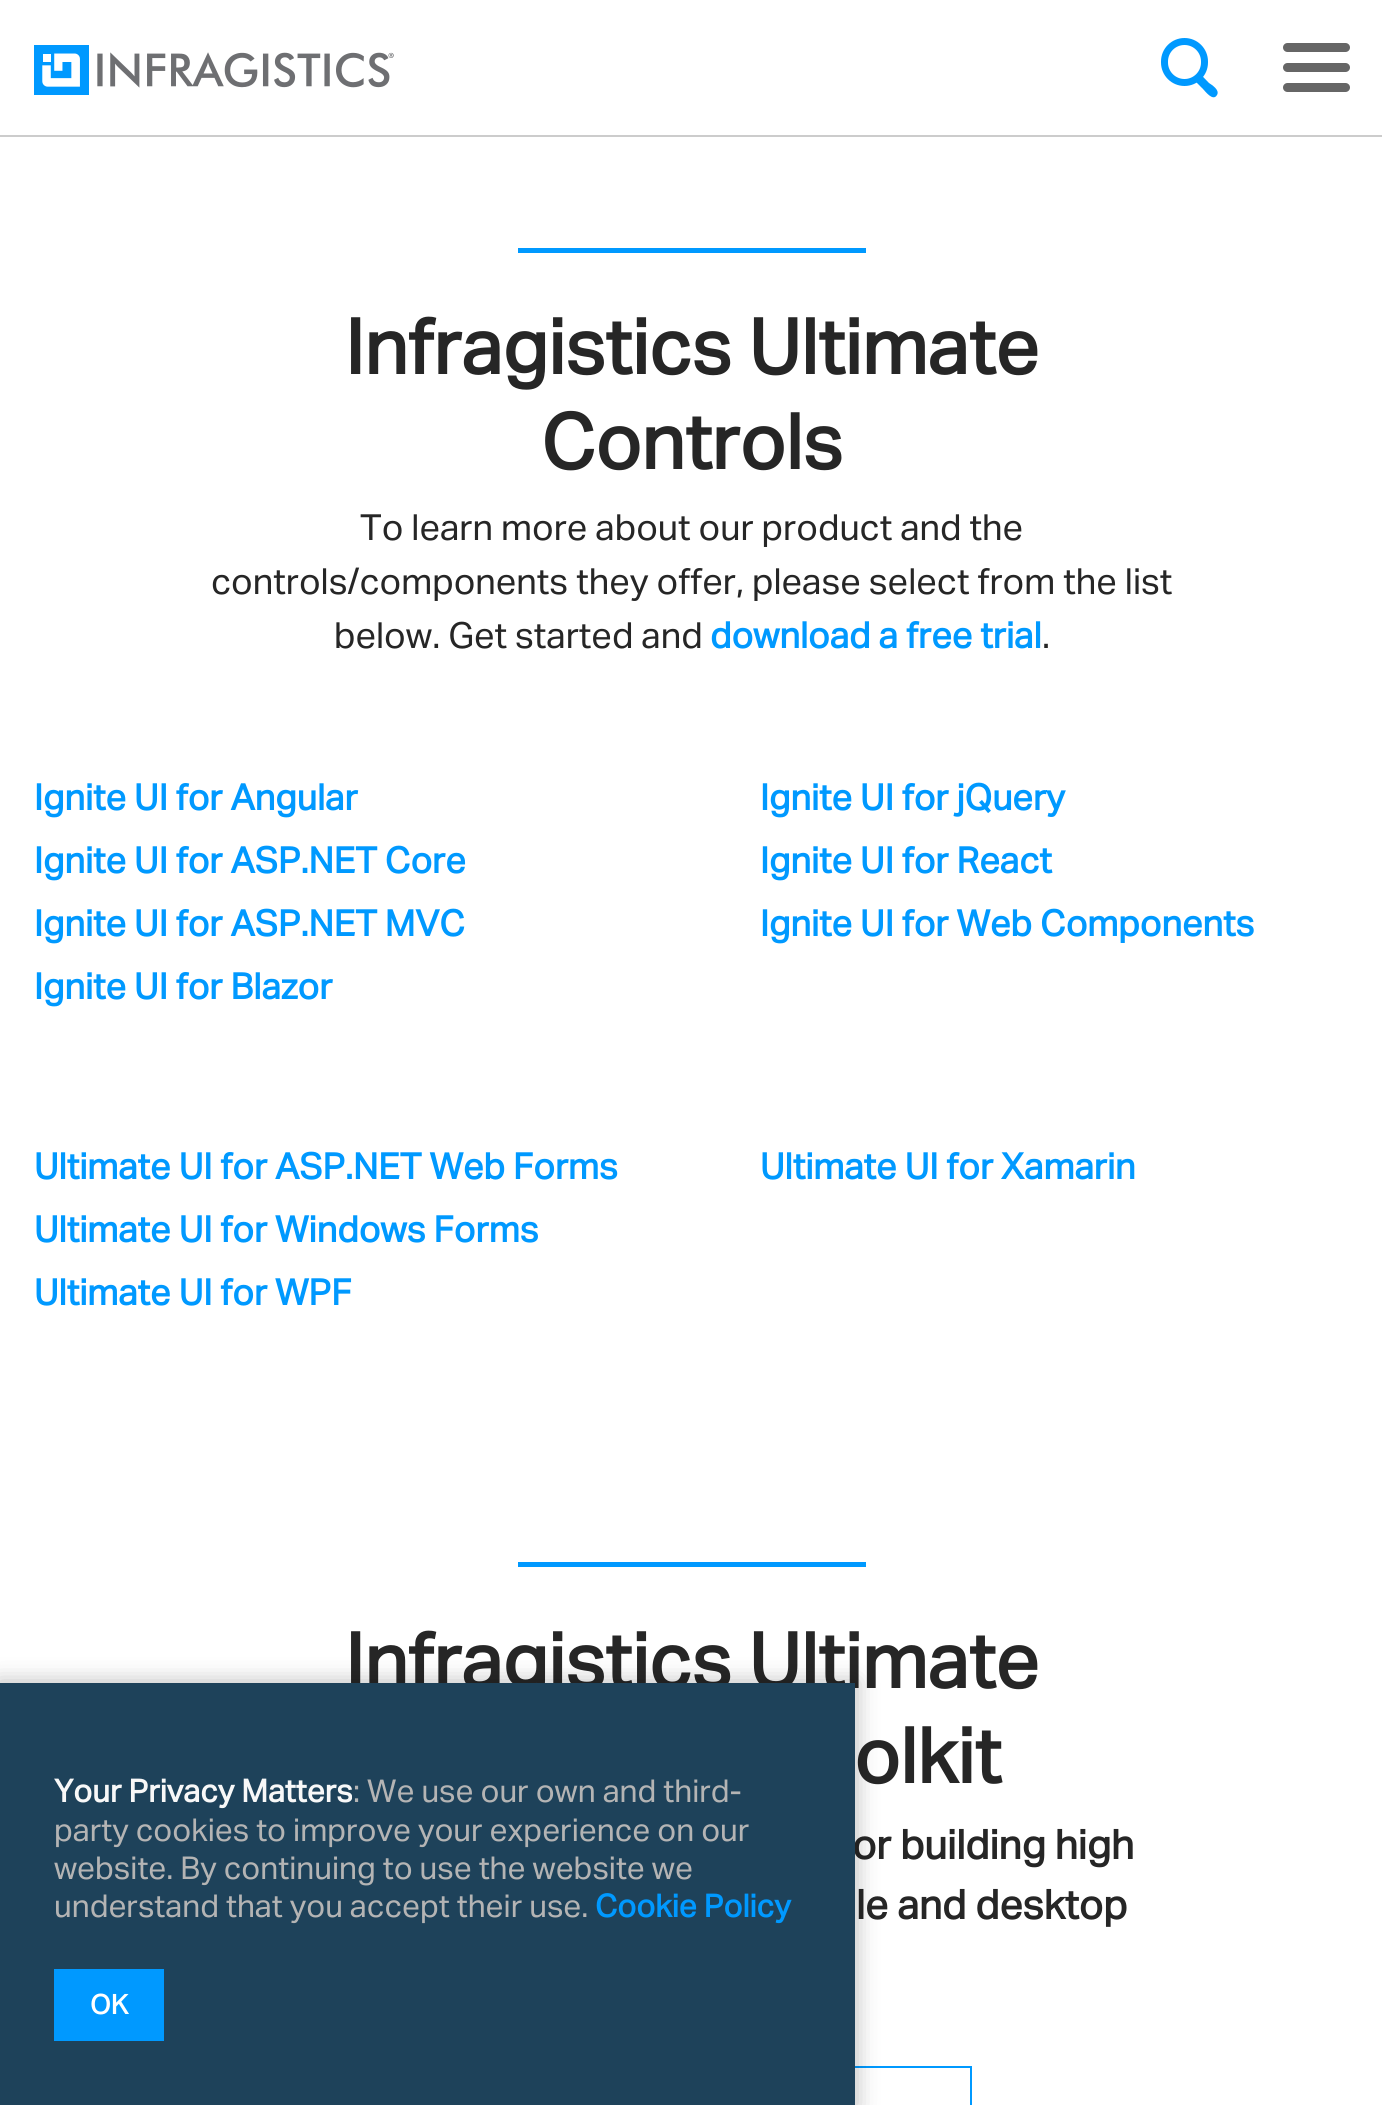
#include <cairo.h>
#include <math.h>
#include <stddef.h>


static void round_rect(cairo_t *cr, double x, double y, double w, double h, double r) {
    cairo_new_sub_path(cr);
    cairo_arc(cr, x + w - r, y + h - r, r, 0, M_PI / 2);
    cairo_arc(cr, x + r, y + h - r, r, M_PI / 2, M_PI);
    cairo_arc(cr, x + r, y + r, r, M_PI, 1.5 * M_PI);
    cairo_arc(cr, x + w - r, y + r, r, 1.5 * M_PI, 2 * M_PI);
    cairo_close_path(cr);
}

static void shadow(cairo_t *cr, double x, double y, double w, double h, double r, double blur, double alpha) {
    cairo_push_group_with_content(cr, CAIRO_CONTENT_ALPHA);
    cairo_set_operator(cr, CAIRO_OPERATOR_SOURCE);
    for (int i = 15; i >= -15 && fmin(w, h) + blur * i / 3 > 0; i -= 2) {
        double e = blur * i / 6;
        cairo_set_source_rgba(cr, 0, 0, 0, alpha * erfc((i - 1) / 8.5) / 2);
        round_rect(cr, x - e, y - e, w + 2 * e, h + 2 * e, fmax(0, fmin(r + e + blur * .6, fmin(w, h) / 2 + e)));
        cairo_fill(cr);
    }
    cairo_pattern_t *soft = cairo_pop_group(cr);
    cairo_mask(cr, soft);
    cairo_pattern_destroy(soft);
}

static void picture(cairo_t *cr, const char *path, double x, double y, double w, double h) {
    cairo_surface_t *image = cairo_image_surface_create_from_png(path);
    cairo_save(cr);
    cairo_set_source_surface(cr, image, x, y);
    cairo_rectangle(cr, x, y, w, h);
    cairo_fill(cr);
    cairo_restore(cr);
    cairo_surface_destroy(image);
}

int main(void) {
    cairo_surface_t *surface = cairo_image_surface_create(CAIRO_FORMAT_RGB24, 1382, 2105);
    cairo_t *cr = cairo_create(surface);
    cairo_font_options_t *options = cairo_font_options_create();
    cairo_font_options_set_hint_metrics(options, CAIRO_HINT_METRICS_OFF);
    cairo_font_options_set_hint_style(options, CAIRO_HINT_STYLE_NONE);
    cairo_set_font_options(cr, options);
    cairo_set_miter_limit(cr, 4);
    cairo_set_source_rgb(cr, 1, 1, 1);
    cairo_paint(cr);
    cairo_set_source_rgb(cr, 0.8, 0.8, 0.8);
    cairo_rectangle(cr, 0, 135, 1382, 2);
    cairo_fill(cr);
    picture(cr, "img1.png", 34, 45, 360, 50);
    cairo_set_source_rgb(cr, 0, 0.6, 1);
    cairo_new_path(cr);
    cairo_move_to(cr, 1175, 48);
    cairo_line_to(cr, 1209, 83);
    cairo_curve_to(cr, 1212, 85, 1220, 90, 1217, 95);
    cairo_curve_to(cr, 1213, 102, 1205, 91, 1203, 89);
    cairo_line_to(cr, 1168, 54);
    cairo_curve_to(cr, 1165, 49, 1171, 44, 1175, 48);
    cairo_close_path(cr);
    cairo_fill(cr);
    cairo_set_source_rgb(cr, 1, 1, 1);
    round_rect(cr, 1164.5, 41.5, 40, 41, 20);
    cairo_fill_preserve(cr);
    cairo_set_source_rgb(cr, 0, 0.6, 1);
    cairo_set_line_width(cr, 7);
    cairo_stroke(cr);
    cairo_set_source_rgb(cr, 0.4, 0.4, 0.4);
    round_rect(cr, 1283, 63, 67, 9, 4.5);
    cairo_fill(cr);
    round_rect(cr, 1283, 43, 67, 9, 4.5);
    cairo_fill(cr);
    round_rect(cr, 1283, 83, 67, 9, 4.5);
    cairo_fill(cr);
    cairo_set_source_rgb(cr, 0, 0.6, 1);
    cairo_rectangle(cr, 518, 248, 348, 5);
    cairo_fill(cr);
    cairo_select_font_face(cr, "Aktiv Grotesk", CAIRO_FONT_SLANT_NORMAL, CAIRO_FONT_WEIGHT_BOLD);
    cairo_set_font_size(cr, 76.5);
    cairo_set_source_rgb(cr, 0.149, 0.149, 0.149);
    cairo_move_to(cr, 345, 374);
    cairo_show_text(cr, "Infragistics Ultimate");
    cairo_move_to(cr, 541, 469);
    cairo_show_text(cr, "Controls");
    cairo_select_font_face(cr, "Aktiv Grotesk", CAIRO_FONT_SLANT_NORMAL, CAIRO_FONT_WEIGHT_NORMAL);
    cairo_set_font_size(cr, 36);
    cairo_move_to(cr, 360, 540);
    cairo_show_text(cr, "To learn more about our product and the");
    cairo_move_to(cr, 211, 594);
    cairo_show_text(cr, "controls/components they offer, please select from the list");
    cairo_move_to(cr, 334, 648);
    cairo_show_text(cr, "below. Get started and");
    cairo_select_font_face(cr, "Aktiv Grotesk", CAIRO_FONT_SLANT_NORMAL, CAIRO_FONT_WEIGHT_BOLD);
    cairo_set_source_rgb(cr, 0, 0.6, 1);
    cairo_move_to(cr, 710, 648);
    cairo_show_text(cr, "download a free trial");
    cairo_select_font_face(cr, "Aktiv Grotesk", CAIRO_FONT_SLANT_NORMAL, CAIRO_FONT_WEIGHT_NORMAL);
    cairo_set_source_rgb(cr, 0.149, 0.149, 0.149);
    cairo_move_to(cr, 1042, 648);
    cairo_show_text(cr, ".");
    cairo_select_font_face(cr, "Aktiv Grotesk", CAIRO_FONT_SLANT_NORMAL, CAIRO_FONT_WEIGHT_BOLD);
    cairo_set_source_rgb(cr, 0, 0.6, 1);
    cairo_move_to(cr, 34, 810);
    cairo_show_text(cr, "Ignite UI for Angular");
    cairo_move_to(cr, 34, 873);
    cairo_show_text(cr, "Ignite UI for ASP.NET Core");
    cairo_move_to(cr, 34, 936);
    cairo_show_text(cr, "Ignite UI for ASP.NET MVC");
    cairo_move_to(cr, 34, 999);
    cairo_show_text(cr, "Ignite UI for Blazor");
    cairo_move_to(cr, 760, 810);
    cairo_show_text(cr, "Ignite UI for jQuery");
    cairo_move_to(cr, 760, 873);
    cairo_show_text(cr, "Ignite UI for React");
    cairo_move_to(cr, 760, 936);
    cairo_show_text(cr, "Ignite UI for Web Components");
    cairo_move_to(cr, 34, 1179);
    cairo_show_text(cr, "Ultimate UI for ASP.NET Web Forms");
    cairo_move_to(cr, 34, 1242);
    cairo_show_text(cr, "Ultimate UI for Windows Forms");
    cairo_move_to(cr, 34, 1305);
    cairo_show_text(cr, "Ultimate UI for WPF");
    cairo_move_to(cr, 760, 1179);
    cairo_show_text(cr, "Ultimate UI for Xamarin");
    cairo_rectangle(cr, 518, 1562, 348, 5);
    cairo_fill(cr);
    cairo_set_font_size(cr, 76.5);
    cairo_set_source_rgb(cr, 0.149, 0.149, 0.149);
    cairo_move_to(cr, 345, 1688);
    cairo_show_text(cr, "Infragistics Ultimate");
    cairo_move_to(cr, 854, 1783);
    cairo_show_text(cr, "olkit");
    cairo_set_font_size(cr, 40.5);
    cairo_move_to(cr, 852, 1859);
    cairo_show_text(cr, "or building high");
    cairo_move_to(cr, 856, 1919);
    cairo_show_text(cr, "le and desktop");
    cairo_rectangle(cr, 764, 2067, 207, 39);
    cairo_set_source_rgb(cr, 0, 0.6, 1);
    cairo_set_line_width(cr, 2);
    cairo_stroke(cr);
    cairo_set_source_rgb(cr, 0, 0, 0);
    shadow(cr, -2, 1681, 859, 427, 0, 11, 0.25);
    cairo_set_source_rgb(cr, 0.118, 0.259, 0.353);
    cairo_rectangle(cr, 0, 1683, 855, 422);
    cairo_fill(cr);
    cairo_set_font_size(cr, 31.5);
    cairo_set_source_rgb(cr, 0.969, 0.969, 0.969);
    cairo_move_to(cr, 54, 1802);
    cairo_show_text(cr, "Your Privacy Matters");
    cairo_select_font_face(cr, "Aktiv Grotesk", CAIRO_FONT_SLANT_NORMAL, CAIRO_FONT_WEIGHT_NORMAL);
    cairo_set_source_rgb(cr, 0.706, 0.706, 0.706);
    cairo_move_to(cr, 353, 1802);
    cairo_show_text(cr, ": We use our own and third-");
    cairo_move_to(cr, 54, 1841);
    cairo_show_text(cr, "party cookies to improve your experience on our");
    cairo_move_to(cr, 54, 1879);
    cairo_show_text(cr, "website. By continuing to use the website we");
    cairo_move_to(cr, 54, 1917);
    cairo_show_text(cr, "understand that you accept their use.");
    cairo_select_font_face(cr, "Aktiv Grotesk", CAIRO_FONT_SLANT_NORMAL, CAIRO_FONT_WEIGHT_BOLD);
    cairo_set_source_rgb(cr, 0, 0.6, 1);
    cairo_move_to(cr, 595, 1917);
    cairo_show_text(cr, "Cookie Policy");
    cairo_rectangle(cr, 54, 1969, 110, 72);
    cairo_fill(cr);
    cairo_set_font_size(cr, 27);
    cairo_set_source_rgb(cr, 1, 1, 1);
    cairo_move_to(cr, 90, 2014);
    cairo_show_text(cr, "OK");
    cairo_surface_write_to_png(surface, "page.png");
    cairo_font_options_destroy(options);
    cairo_destroy(cr);
    cairo_surface_destroy(surface);
    return 0;
}
